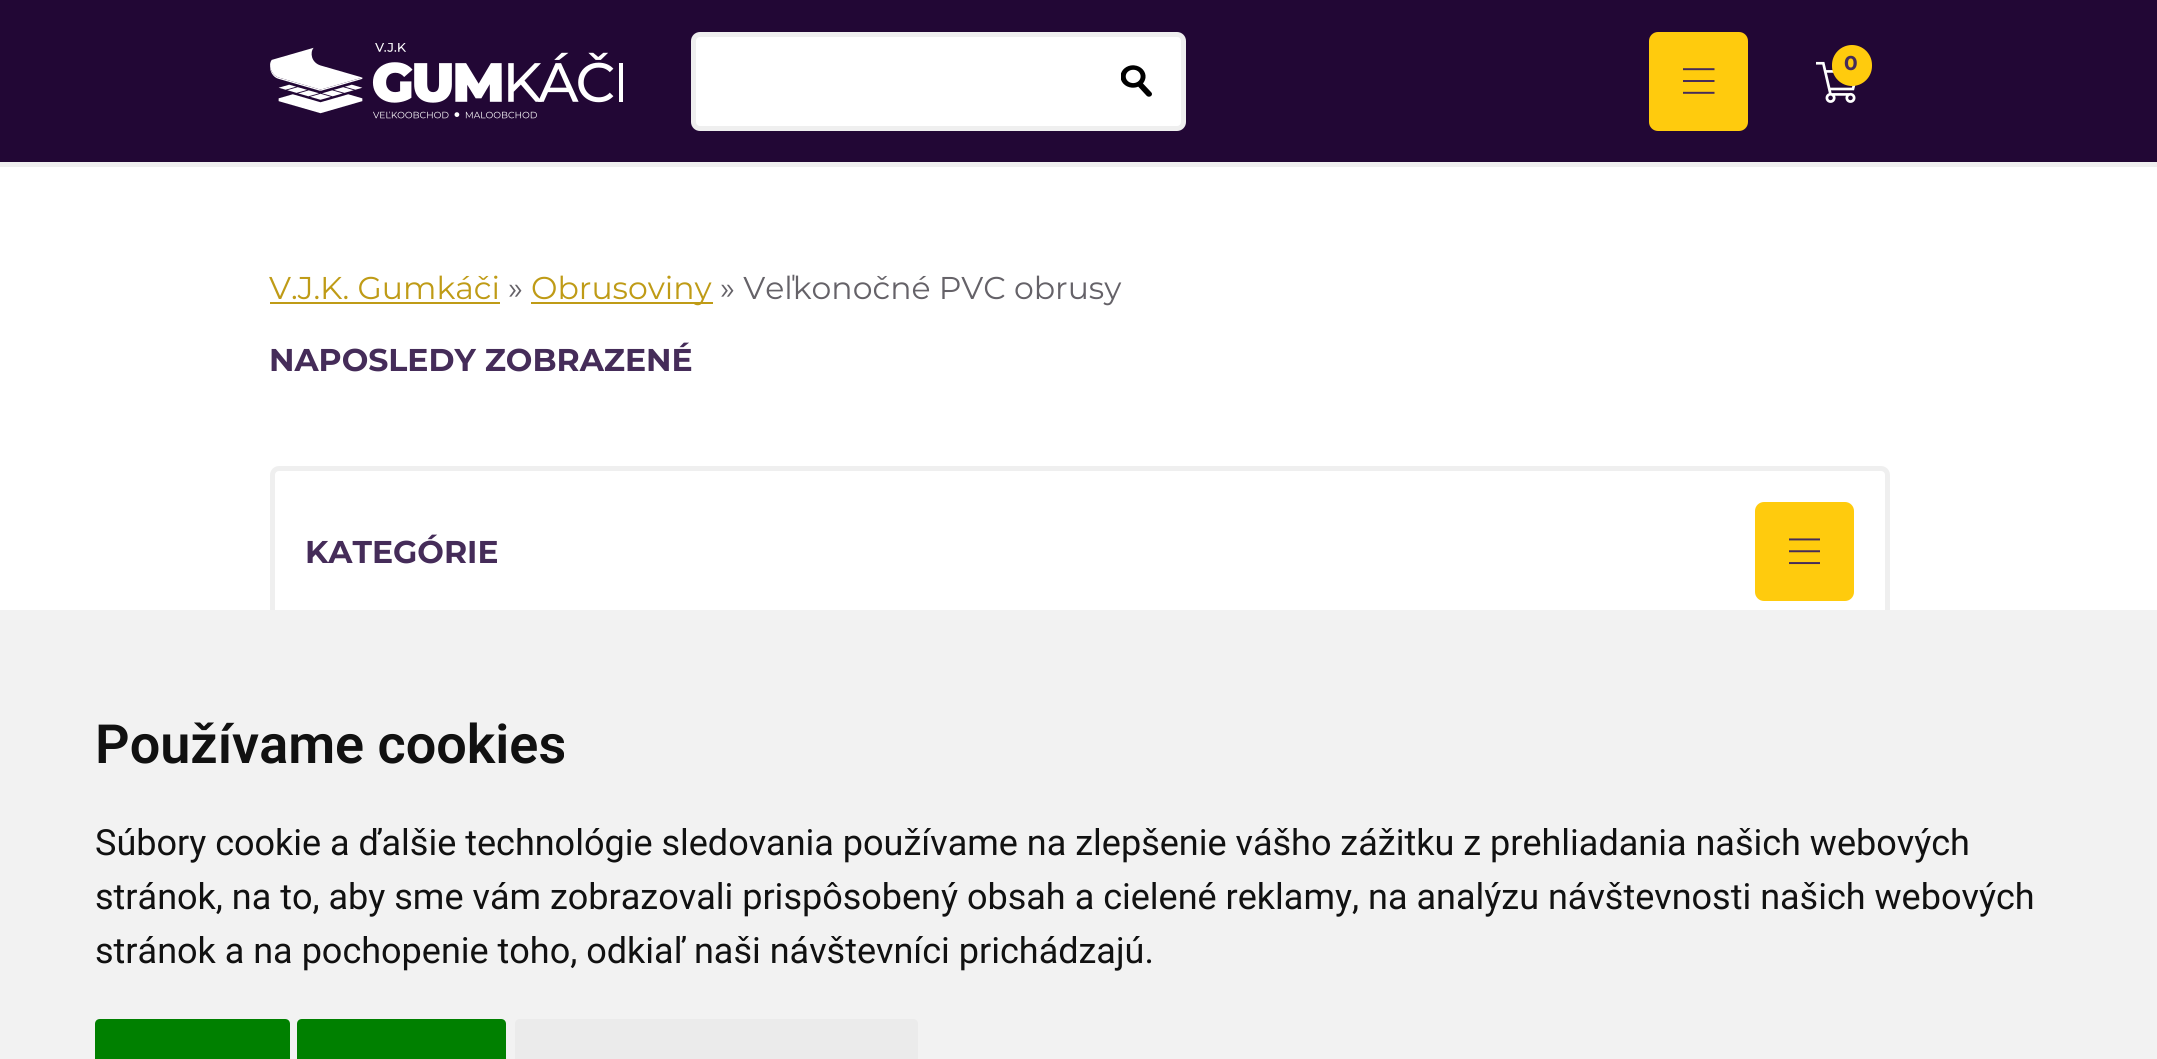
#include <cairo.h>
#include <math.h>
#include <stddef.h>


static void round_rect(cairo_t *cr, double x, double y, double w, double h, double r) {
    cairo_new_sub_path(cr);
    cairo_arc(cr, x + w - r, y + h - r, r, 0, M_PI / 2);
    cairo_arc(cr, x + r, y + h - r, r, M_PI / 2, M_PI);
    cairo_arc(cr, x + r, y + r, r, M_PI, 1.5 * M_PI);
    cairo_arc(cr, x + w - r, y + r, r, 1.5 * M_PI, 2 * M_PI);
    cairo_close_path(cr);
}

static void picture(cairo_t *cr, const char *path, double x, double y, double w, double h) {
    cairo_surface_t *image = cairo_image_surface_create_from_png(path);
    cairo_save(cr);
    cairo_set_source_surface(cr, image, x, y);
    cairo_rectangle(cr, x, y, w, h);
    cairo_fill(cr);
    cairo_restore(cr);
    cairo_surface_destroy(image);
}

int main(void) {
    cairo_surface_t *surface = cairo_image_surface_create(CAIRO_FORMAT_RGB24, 2157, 1059);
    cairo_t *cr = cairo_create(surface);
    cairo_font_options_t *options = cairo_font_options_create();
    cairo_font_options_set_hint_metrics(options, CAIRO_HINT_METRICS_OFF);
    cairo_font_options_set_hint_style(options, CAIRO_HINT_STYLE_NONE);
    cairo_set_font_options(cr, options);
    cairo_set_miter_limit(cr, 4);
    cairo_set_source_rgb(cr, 1, 1, 1);
    cairo_paint(cr);
    cairo_set_source_rgb(cr, 0.133, 0.031, 0.208);
    cairo_rectangle(cr, 0, 0, 2157, 162);
    cairo_fill(cr);
    cairo_set_source_rgb(cr, 0.937, 0.937, 0.937);
    cairo_rectangle(cr, 0, 162, 2157, 5);
    cairo_fill(cr);
    picture(cr, "img1.png", 270, 43, 353, 76);
    cairo_set_source_rgb(cr, 1, 1, 1);
    round_rect(cr, 693.5, 34.5, 490, 94, 6.5);
    cairo_fill_preserve(cr);
    cairo_set_source_rgb(cr, 0.937, 0.937, 0.937);
    cairo_set_line_width(cr, 5);
    cairo_stroke(cr);
    picture(cr, "img2.png", 1121, 65, 31, 32);
    cairo_set_source_rgb(cr, 1, 0.796, 0.051);
    round_rect(cr, 1649, 32, 99, 99, 9);
    cairo_fill(cr);
    picture(cr, "img3.png", 1683, 68, 32, 26);
    picture(cr, "img4.png", 1816, 61, 40, 42);
    round_rect(cr, 1832, 45, 40, 41, 20);
    cairo_fill(cr);
    cairo_select_font_face(cr, "Montserrat", CAIRO_FONT_SLANT_NORMAL, CAIRO_FONT_WEIGHT_BOLD);
    cairo_set_font_size(cr, 20);
    cairo_set_source_rgb(cr, 0.271, 0.173, 0.349);
    cairo_move_to(cr, 1844, 70);
    cairo_show_text(cr, "0");
    cairo_select_font_face(cr, "Montserrat", CAIRO_FONT_SLANT_NORMAL, CAIRO_FONT_WEIGHT_NORMAL);
    cairo_set_font_size(cr, 31.5);
    cairo_set_source_rgb(cr, 0.749, 0.608, 0.086);
    cairo_move_to(cr, 269, 299);
    cairo_show_text(cr, "V.J.K. Gumkáči");
    cairo_rectangle(cr, 270, 302, 230, 2);
    cairo_fill(cr);
    cairo_set_source_rgb(cr, 0.396, 0.384, 0.408);
    cairo_move_to(cr, 508, 299);
    cairo_show_text(cr, "»");
    cairo_set_source_rgb(cr, 0.749, 0.608, 0.086);
    cairo_rectangle(cr, 531, 302, 182, 2);
    cairo_fill(cr);
    cairo_move_to(cr, 531, 299);
    cairo_show_text(cr, "Obrusoviny");
    cairo_set_source_rgb(cr, 0.396, 0.384, 0.408);
    cairo_move_to(cr, 720, 299);
    cairo_show_text(cr, "» Veľkonočné PVC obrusy");
    cairo_select_font_face(cr, "Montserrat", CAIRO_FONT_SLANT_NORMAL, CAIRO_FONT_WEIGHT_BOLD);
    cairo_set_source_rgb(cr, 0.271, 0.173, 0.349);
    cairo_move_to(cr, 269, 371);
    cairo_show_text(cr, "NAPOSLEDY ZOBRAZENÉ");
    round_rect(cr, 272.5, 468.5, 1615, 166, 6.5);
    cairo_set_source_rgb(cr, 0.937, 0.937, 0.937);
    cairo_stroke(cr);
    cairo_set_source_rgb(cr, 0.271, 0.173, 0.349);
    cairo_move_to(cr, 305, 563);
    cairo_show_text(cr, "KATEGÓRIE");
    cairo_set_source_rgb(cr, 1, 0.796, 0.051);
    round_rect(cr, 1755, 502, 99, 99, 9);
    cairo_fill(cr);
    picture(cr, "img5.png", 1789, 538, 31, 27);
    cairo_set_source_rgb(cr, 0.949, 0.949, 0.949);
    cairo_rectangle(cr, 0, 610, 2157, 449);
    cairo_fill(cr);
    cairo_select_font_face(cr, "Roboto SemiBold", CAIRO_FONT_SLANT_NORMAL, CAIRO_FONT_WEIGHT_NORMAL);
    cairo_set_font_size(cr, 54);
    cairo_set_source_rgb(cr, 0.067, 0.067, 0.067);
    cairo_move_to(cr, 95, 763);
    cairo_show_text(cr, "Používame cookies");
    cairo_select_font_face(cr, "Roboto", CAIRO_FONT_SLANT_NORMAL, CAIRO_FONT_WEIGHT_NORMAL);
    cairo_set_font_size(cr, 36);
    cairo_move_to(cr, 95, 855);
    cairo_show_text(cr, "Súbory cookie a ďalšie technológie sledovania používame na zlepšenie vášho zážitku z prehliadania našich webových");
    cairo_move_to(cr, 95, 909);
    cairo_show_text(cr, "stránok, na to, aby sme vám zobrazovali prispôsobený obsah a cielené reklamy, na analýzu návštevnosti našich webových");
    cairo_move_to(cr, 95, 963);
    cairo_show_text(cr, "stránok a na pochopenie toho, odkiaľ naši návštevníci prichádzajú.");
    cairo_set_source_rgb(cr, 0, 0.502, 0);
    cairo_new_path(cr);
    cairo_move_to(cr, 100, 1019);
    cairo_line_to(cr, 285, 1019);
    cairo_curve_to(cr, 288, 1019, 290, 1021, 290, 1024);
    cairo_line_to(cr, 290, 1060);
    cairo_line_to(cr, 95, 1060);
    cairo_line_to(cr, 95, 1024);
    cairo_curve_to(cr, 95, 1021, 97, 1019, 100, 1019);
    cairo_close_path(cr);
    cairo_fill(cr);
    cairo_new_path(cr);
    cairo_move_to(cr, 302, 1019);
    cairo_line_to(cr, 501, 1019);
    cairo_curve_to(cr, 504, 1019, 506, 1021, 506, 1024);
    cairo_line_to(cr, 506, 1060);
    cairo_line_to(cr, 297, 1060);
    cairo_line_to(cr, 297, 1024);
    cairo_curve_to(cr, 297, 1021, 299, 1019, 302, 1019);
    cairo_close_path(cr);
    cairo_fill(cr);
    cairo_set_source_rgb(cr, 0.918, 0.918, 0.918);
    cairo_new_path(cr);
    cairo_move_to(cr, 520, 1019);
    cairo_line_to(cr, 913, 1019);
    cairo_curve_to(cr, 916, 1019, 918, 1021, 918, 1024);
    cairo_line_to(cr, 918, 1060);
    cairo_line_to(cr, 515, 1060);
    cairo_line_to(cr, 515, 1024);
    cairo_curve_to(cr, 515, 1021, 517, 1019, 520, 1019);
    cairo_close_path(cr);
    cairo_fill(cr);
    cairo_surface_write_to_png(surface, "page.png");
    cairo_font_options_destroy(options);
    cairo_destroy(cr);
    cairo_surface_destroy(surface);
    return 0;
}
